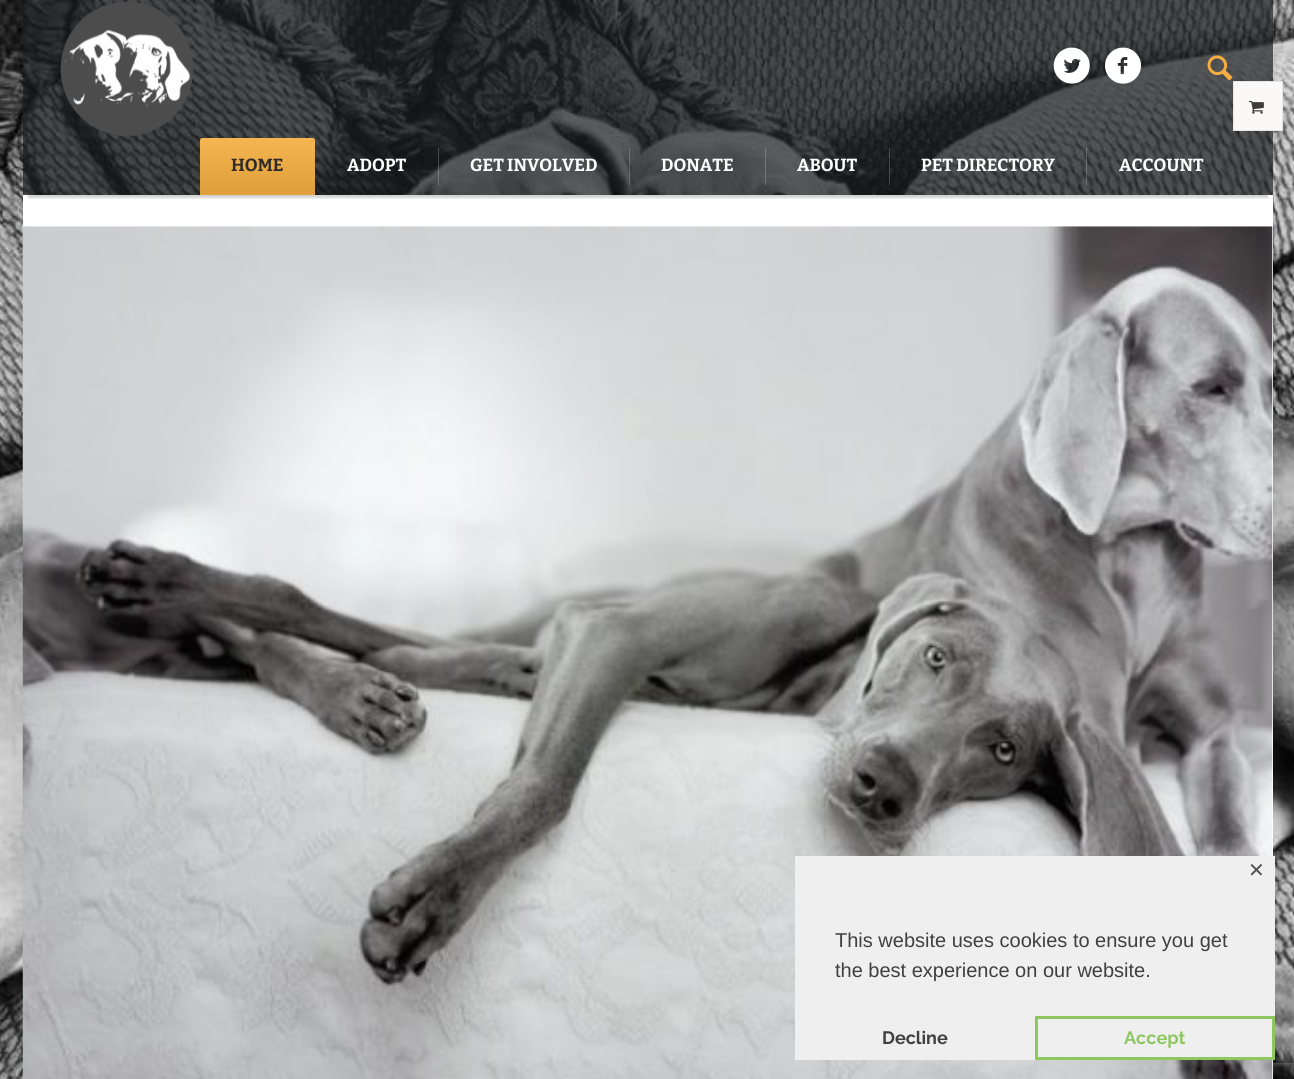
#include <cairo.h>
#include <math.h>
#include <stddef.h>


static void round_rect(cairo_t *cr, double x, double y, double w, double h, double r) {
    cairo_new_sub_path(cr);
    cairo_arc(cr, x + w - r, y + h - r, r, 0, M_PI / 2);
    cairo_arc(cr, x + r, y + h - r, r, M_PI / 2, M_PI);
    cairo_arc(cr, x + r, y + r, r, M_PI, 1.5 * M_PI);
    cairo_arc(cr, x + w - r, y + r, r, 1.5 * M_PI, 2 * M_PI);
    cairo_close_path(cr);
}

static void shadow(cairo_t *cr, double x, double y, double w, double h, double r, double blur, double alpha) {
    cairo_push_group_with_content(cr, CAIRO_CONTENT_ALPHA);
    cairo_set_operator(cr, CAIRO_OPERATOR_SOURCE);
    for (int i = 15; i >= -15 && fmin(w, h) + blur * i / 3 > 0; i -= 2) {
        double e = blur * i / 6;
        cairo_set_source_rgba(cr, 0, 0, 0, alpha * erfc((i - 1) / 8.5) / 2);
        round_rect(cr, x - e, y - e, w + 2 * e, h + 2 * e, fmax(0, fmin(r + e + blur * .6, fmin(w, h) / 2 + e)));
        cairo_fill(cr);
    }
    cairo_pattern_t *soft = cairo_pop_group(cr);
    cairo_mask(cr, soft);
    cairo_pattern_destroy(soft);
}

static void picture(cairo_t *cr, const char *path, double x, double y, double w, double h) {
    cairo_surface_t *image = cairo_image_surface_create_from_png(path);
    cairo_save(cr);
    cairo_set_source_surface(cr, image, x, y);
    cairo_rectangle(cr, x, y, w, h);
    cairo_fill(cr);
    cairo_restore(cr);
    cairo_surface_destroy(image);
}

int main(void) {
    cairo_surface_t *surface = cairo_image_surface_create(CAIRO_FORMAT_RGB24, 1294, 1079);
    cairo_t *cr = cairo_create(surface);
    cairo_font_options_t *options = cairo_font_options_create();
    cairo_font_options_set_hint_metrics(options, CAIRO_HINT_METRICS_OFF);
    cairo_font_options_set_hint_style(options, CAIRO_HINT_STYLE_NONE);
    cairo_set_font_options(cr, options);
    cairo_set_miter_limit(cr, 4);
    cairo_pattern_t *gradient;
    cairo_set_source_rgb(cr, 1, 1, 1);
    cairo_paint(cr);
    picture(cr, "img1.png", 0, 0, 1294, 1079);
    cairo_save(cr);
    cairo_set_fill_rule(cr, CAIRO_FILL_RULE_EVEN_ODD);
    cairo_new_path(cr);
    cairo_move_to(cr, 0, 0);
    cairo_line_to(cr, 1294, 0);
    cairo_line_to(cr, 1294, 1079);
    cairo_line_to(cr, 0, 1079);
    cairo_close_path(cr);
    cairo_move_to(cr, 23, 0);
    cairo_line_to(cr, 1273, 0);
    cairo_line_to(cr, 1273, 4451);
    cairo_line_to(cr, 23, 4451);
    cairo_close_path(cr);
    cairo_clip(cr);
    cairo_set_source_rgb(cr, 0, 0, 0);
    shadow(cr, 16, -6, 1263, 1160, 0, 25, 0.11);
    cairo_restore(cr);
    cairo_save(cr);
    cairo_set_fill_rule(cr, CAIRO_FILL_RULE_EVEN_ODD);
    cairo_new_path(cr);
    cairo_move_to(cr, 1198, 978);
    cairo_line_to(cr, 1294, 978);
    cairo_line_to(cr, 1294, 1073);
    cairo_line_to(cr, 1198, 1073);
    cairo_close_path(cr);
    cairo_move_to(cr, 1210.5, 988);
    cairo_line_to(cr, 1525.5, 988);
    cairo_curve_to(cr, 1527, 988, 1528, 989, 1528, 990.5);
    cairo_line_to(cr, 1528, 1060.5);
    cairo_curve_to(cr, 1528, 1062, 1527, 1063, 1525.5, 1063);
    cairo_line_to(cr, 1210.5, 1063);
    cairo_curve_to(cr, 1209, 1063, 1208, 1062, 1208, 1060.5);
    cairo_line_to(cr, 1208, 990.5);
    cairo_curve_to(cr, 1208, 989, 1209, 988, 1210.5, 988);
    cairo_close_path(cr);
    cairo_clip(cr);
    cairo_set_source_rgb(cr, 0.502, 0.502, 0.502);
    shadow(cr, 1208, 988, 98, 75, 2.5, 3, 1);
    cairo_restore(cr);
    cairo_set_source_rgb(cr, 1, 1, 1);
    cairo_rectangle(cr, 23, 195, 1250, 884);
    cairo_fill(cr);
    cairo_save(cr);
    cairo_rectangle(cr, 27, 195, 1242, 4);
    cairo_clip(cr);
    cairo_set_source_rgb(cr, 0.098, 0.11, 0.118);
    shadow(cr, 28, 13, 1240, 185, 0, 1, 0.2);
    cairo_restore(cr);
    cairo_set_source_rgba(cr, 0.098, 0.11, 0.118, 0.7);
    cairo_rectangle(cr, 23, 0, 1250, 138);
    cairo_fill(cr);
    cairo_set_source_rgb(cr, 0.98, 0.976, 0.969);
    cairo_rectangle(cr, 1233.5, 81.5, 49, 49);
    cairo_fill_preserve(cr);
    cairo_set_source_rgb(cr, 0.898, 0.898, 0.898);
    cairo_set_line_width(cr, 1);
    cairo_stroke(cr);
    picture(cr, "img2.png", 1248, 101, 16, 13);
    picture(cr, "img3.png", 60, 1, 134, 135);
    picture(cr, "img4.png", 1053, 47, 37, 37);
    picture(cr, "img5.png", 1105, 47, 36, 37);
    picture(cr, "img6.png", 1207, 55, 26, 26);
    cairo_set_source_rgba(cr, 0.098, 0.11, 0.118, 0.7);
    cairo_rectangle(cr, 23, 138, 1250, 57);
    cairo_fill(cr);
    cairo_set_source_rgb(cr, 0.957, 0.682, 0.251);
    cairo_new_path(cr);
    cairo_move_to(cr, 202.5, 138);
    cairo_line_to(cr, 312.5, 138);
    cairo_curve_to(cr, 314, 138, 315, 139, 315, 140.5);
    cairo_line_to(cr, 315, 195);
    cairo_line_to(cr, 200, 195);
    cairo_line_to(cr, 200, 140.5);
    cairo_curve_to(cr, 200, 139, 201, 138, 202.5, 138);
    cairo_close_path(cr);
    cairo_fill(cr);
    gradient = cairo_pattern_create_linear(258, 138, 258, 195);
    cairo_pattern_add_color_stop_rgba(gradient, 0, 1, 1, 1, 0.09);
    cairo_pattern_add_color_stop_rgba(gradient, 1, 0, 0, 0, 0.09);
    cairo_set_source(cr, gradient);
    cairo_pattern_destroy(gradient);
    cairo_new_path(cr);
    cairo_move_to(cr, 202.5, 138);
    cairo_line_to(cr, 312.5, 138);
    cairo_curve_to(cr, 314, 138, 315, 139, 315, 140.5);
    cairo_line_to(cr, 315, 195);
    cairo_line_to(cr, 200, 195);
    cairo_line_to(cr, 200, 140.5);
    cairo_curve_to(cr, 200, 139, 201, 138, 202.5, 138);
    cairo_close_path(cr);
    cairo_fill(cr);
    cairo_select_font_face(cr, "Bitter", CAIRO_FONT_SLANT_NORMAL, CAIRO_FONT_WEIGHT_BOLD);
    cairo_set_font_size(cr, 17.5);
    cairo_set_source_rgb(cr, 0.18, 0.169, 0.161);
    cairo_move_to(cr, 231, 171);
    cairo_show_text(cr, "HOME");
    cairo_set_source_rgb(cr, 1, 1, 1);
    cairo_move_to(cr, 347, 171);
    cairo_show_text(cr, "ADOPT");
    cairo_set_source_rgba(cr, 1, 1, 1, 0.2);
    cairo_rectangle(cr, 438, 148, 1, 37);
    cairo_fill(cr);
    cairo_set_source_rgb(cr, 1, 1, 1);
    cairo_move_to(cr, 470, 171);
    cairo_show_text(cr, "GET INVOLVED");
    cairo_set_source_rgba(cr, 1, 1, 1, 0.2);
    cairo_rectangle(cr, 629, 148, 1, 37);
    cairo_fill(cr);
    cairo_set_source_rgb(cr, 1, 1, 1);
    cairo_move_to(cr, 661, 171);
    cairo_show_text(cr, "DONATE");
    cairo_set_source_rgba(cr, 1, 1, 1, 0.2);
    cairo_rectangle(cr, 765, 148, 1, 37);
    cairo_fill(cr);
    cairo_set_source_rgb(cr, 1, 1, 1);
    cairo_move_to(cr, 797, 171);
    cairo_show_text(cr, "ABOUT");
    cairo_set_source_rgba(cr, 1, 1, 1, 0.2);
    cairo_rectangle(cr, 889, 148, 1, 37);
    cairo_fill(cr);
    cairo_set_source_rgb(cr, 1, 1, 1);
    cairo_move_to(cr, 921, 171);
    cairo_show_text(cr, "PET DIRECTORY");
    cairo_set_source_rgba(cr, 1, 1, 1, 0.2);
    cairo_rectangle(cr, 1086, 148, 1, 37);
    cairo_fill(cr);
    cairo_set_source_rgb(cr, 1, 1, 1);
    cairo_move_to(cr, 1119, 171);
    cairo_show_text(cr, "ACCOUNT");
    picture(cr, "img7.png", 22, 226, 1251, 853);
    cairo_set_source_rgb(cr, 0.937, 0.937, 0.937);
    cairo_rectangle(cr, 795, 856, 480, 204);
    cairo_fill(cr);
    cairo_select_font_face(cr, "DejaVu Sans", CAIRO_FONT_SLANT_NORMAL, CAIRO_FONT_WEIGHT_NORMAL);
    cairo_set_font_size(cr, 20);
    cairo_set_source_rgb(cr, 0.322, 0.322, 0.322);
    cairo_move_to(cr, 1248, 877);
    cairo_show_text(cr, "✕");
    cairo_select_font_face(cr, "Liberation Sans", CAIRO_FONT_SLANT_NORMAL, CAIRO_FONT_WEIGHT_NORMAL);
    cairo_set_source_rgb(cr, 0.251, 0.251, 0.251);
    cairo_move_to(cr, 835, 947);
    cairo_show_text(cr, "This website uses cookies to ensure you get");
    cairo_move_to(cr, 835, 977);
    cairo_show_text(cr, "the best experience on our website.");
    cairo_select_font_face(cr, "Raleway", CAIRO_FONT_SLANT_NORMAL, CAIRO_FONT_WEIGHT_BOLD);
    cairo_set_font_size(cr, 18);
    cairo_move_to(cr, 882, 1044);
    cairo_show_text(cr, "Decline");
    cairo_rectangle(cr, 1036.5, 1017.5, 237, 41);
    cairo_set_source_rgb(cr, 0.557, 0.78, 0.376);
    cairo_set_line_width(cr, 3);
    cairo_stroke(cr);
    cairo_move_to(cr, 1124, 1044);
    cairo_show_text(cr, "Accept");
    cairo_surface_write_to_png(surface, "page.png");
    cairo_font_options_destroy(options);
    cairo_destroy(cr);
    cairo_surface_destroy(surface);
    return 0;
}
